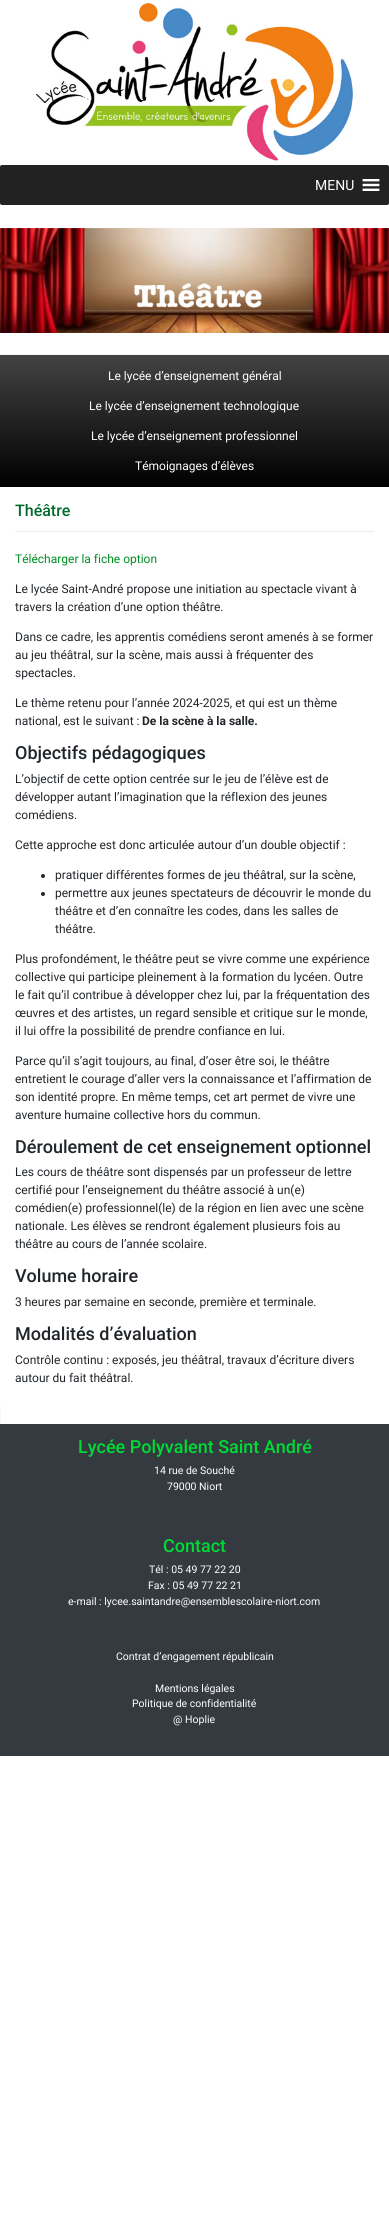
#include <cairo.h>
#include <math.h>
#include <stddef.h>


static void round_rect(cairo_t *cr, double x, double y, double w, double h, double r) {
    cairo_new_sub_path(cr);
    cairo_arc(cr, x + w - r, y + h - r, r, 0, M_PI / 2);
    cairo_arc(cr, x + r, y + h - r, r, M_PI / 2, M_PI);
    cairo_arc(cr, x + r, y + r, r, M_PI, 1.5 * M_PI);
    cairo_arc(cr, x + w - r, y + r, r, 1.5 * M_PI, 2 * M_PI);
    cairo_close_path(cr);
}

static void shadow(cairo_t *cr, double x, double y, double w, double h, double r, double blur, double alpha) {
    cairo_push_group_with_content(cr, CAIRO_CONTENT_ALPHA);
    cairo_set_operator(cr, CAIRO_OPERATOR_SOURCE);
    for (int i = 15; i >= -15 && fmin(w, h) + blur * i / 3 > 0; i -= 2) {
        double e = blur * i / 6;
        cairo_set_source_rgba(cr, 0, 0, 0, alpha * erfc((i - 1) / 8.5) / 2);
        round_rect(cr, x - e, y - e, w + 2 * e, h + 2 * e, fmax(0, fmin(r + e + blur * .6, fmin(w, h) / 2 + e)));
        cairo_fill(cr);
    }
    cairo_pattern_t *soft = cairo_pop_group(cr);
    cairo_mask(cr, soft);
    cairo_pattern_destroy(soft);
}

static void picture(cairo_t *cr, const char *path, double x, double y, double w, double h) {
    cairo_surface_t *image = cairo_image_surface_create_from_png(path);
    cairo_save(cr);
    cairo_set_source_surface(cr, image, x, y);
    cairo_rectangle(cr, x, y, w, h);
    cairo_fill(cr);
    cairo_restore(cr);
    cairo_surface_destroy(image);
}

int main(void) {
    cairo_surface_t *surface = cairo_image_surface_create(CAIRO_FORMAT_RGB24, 389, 2227);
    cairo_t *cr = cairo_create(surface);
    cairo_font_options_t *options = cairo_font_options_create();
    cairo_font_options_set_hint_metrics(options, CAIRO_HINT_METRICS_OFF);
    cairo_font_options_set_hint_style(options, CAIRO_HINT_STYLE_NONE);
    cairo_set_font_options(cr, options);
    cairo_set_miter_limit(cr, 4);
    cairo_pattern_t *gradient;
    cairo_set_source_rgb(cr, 1, 1, 1);
    cairo_paint(cr);
    picture(cr, "img1.png", 36, 2, 317, 159);
    cairo_set_source_rgb(cr, 0.133, 0.133, 0.133);
    round_rect(cr, 0, 165, 389, 40, 2);
    cairo_fill(cr);
    cairo_select_font_face(cr, "Roboto", CAIRO_FONT_SLANT_NORMAL, CAIRO_FONT_WEIGHT_NORMAL);
    cairo_set_font_size(cr, 14);
    cairo_set_source_rgb(cr, 1, 1, 1);
    cairo_move_to(cr, 315, 190);
    cairo_show_text(cr, "MENU");
    picture(cr, "img2.png", 362, 179, 18, 12);
    picture(cr, "img3.png", 0, 228, 389, 105);
    cairo_set_source_rgb(cr, 0, 0, 0);
    shadow(cr, 0, 356, 389, 132, 0, 1, 0.4);
    gradient = cairo_pattern_create_linear(195, 355, 195, 487);
    cairo_pattern_add_color_stop_rgba(gradient, 0, 0.263, 0.263, 0.263, 1);
    cairo_pattern_add_color_stop_rgba(gradient, 1, 0, 0, 0, 1);
    cairo_set_source(cr, gradient);
    cairo_pattern_destroy(gradient);
    cairo_rectangle(cr, 0, 355, 389, 132);
    cairo_fill(cr);
    cairo_set_font_size(cr, 12);
    cairo_set_source_rgb(cr, 1, 1, 1);
    cairo_move_to(cr, 108, 380);
    cairo_show_text(cr, "Le lycée d’enseignement général");
    cairo_move_to(cr, 89, 410);
    cairo_show_text(cr, "Le lycée d’enseignement technologique");
    cairo_move_to(cr, 91, 440);
    cairo_show_text(cr, "Le lycée d’enseignement professionnel");
    cairo_move_to(cr, 135, 470);
    cairo_show_text(cr, "Témoignages d’élèves");
    cairo_rectangle(cr, 0, 487, 389, 3);
    cairo_fill(cr);
    cairo_set_source_rgb(cr, 0.918, 0.925, 0.937);
    cairo_rectangle(cr, 15, 531, 359, 1);
    cairo_fill(cr);
    cairo_select_font_face(cr, "Roboto Medium", CAIRO_FONT_SLANT_NORMAL, CAIRO_FONT_WEIGHT_NORMAL);
    cairo_set_font_size(cr, 16);
    cairo_set_source_rgb(cr, 0, 0.42, 0.176);
    cairo_move_to(cr, 15, 516);
    cairo_show_text(cr, "Théâtre");
    cairo_select_font_face(cr, "Roboto", CAIRO_FONT_SLANT_NORMAL, CAIRO_FONT_WEIGHT_NORMAL);
    cairo_set_font_size(cr, 12);
    cairo_set_source_rgb(cr, 0, 0.557, 0.133);
    cairo_move_to(cr, 15, 563);
    cairo_show_text(cr, "Télécharger la fiche option");
    cairo_set_source_rgb(cr, 0.129, 0.145, 0.161);
    cairo_move_to(cr, 15, 593);
    cairo_show_text(cr, "Le lycée Saint-André propose une initiation au spectacle vivant à");
    cairo_move_to(cr, 15, 611);
    cairo_show_text(cr, "travers la création d’une option théâtre.");
    cairo_move_to(cr, 15, 641);
    cairo_show_text(cr, "Dans ce cadre, les apprentis comédiens seront amenés à se former");
    cairo_move_to(cr, 15, 659);
    cairo_show_text(cr, "au jeu théâtral, sur la scène, mais aussi à fréquenter des");
    cairo_move_to(cr, 15, 677);
    cairo_show_text(cr, "spectacles.");
    cairo_move_to(cr, 15, 707);
    cairo_show_text(cr, "Le thème retenu pour l’année 2024-2025, et qui est un thème");
    cairo_move_to(cr, 15, 725);
    cairo_show_text(cr, "national, est le suivant :");
    cairo_select_font_face(cr, "Roboto", CAIRO_FONT_SLANT_NORMAL, CAIRO_FONT_WEIGHT_BOLD);
    cairo_move_to(cr, 142, 725);
    cairo_show_text(cr, "De la scène à la salle.");
    cairo_select_font_face(cr, "Roboto Medium", CAIRO_FONT_SLANT_NORMAL, CAIRO_FONT_WEIGHT_NORMAL);
    cairo_set_font_size(cr, 18);
    cairo_move_to(cr, 15, 759);
    cairo_show_text(cr, "Objectifs pédagogiques");
    cairo_select_font_face(cr, "Roboto", CAIRO_FONT_SLANT_NORMAL, CAIRO_FONT_WEIGHT_NORMAL);
    cairo_set_font_size(cr, 12);
    cairo_move_to(cr, 15, 783);
    cairo_show_text(cr, "L’objectif de cette option centrée sur le jeu de l’élève est de");
    cairo_move_to(cr, 15, 801);
    cairo_show_text(cr, "développer autant l’imagination que la réflexion des jeunes");
    cairo_move_to(cr, 15, 819);
    cairo_show_text(cr, "comédiens.");
    cairo_move_to(cr, 15, 849);
    cairo_show_text(cr, "Cette approche est donc articulée autour d’un double objectif :");
    cairo_new_path(cr);
    cairo_arc(cr, 43, 876, 2, 0, 2 * M_PI);
    cairo_fill(cr);
    cairo_move_to(cr, 55, 879);
    cairo_show_text(cr, "pratiquer différentes formes de jeu théâtral, sur la scène,");
    cairo_new_path(cr);
    cairo_arc(cr, 43, 894, 2, 0, 2 * M_PI);
    cairo_fill(cr);
    cairo_move_to(cr, 55, 897);
    cairo_show_text(cr, "permettre aux jeunes spectateurs de découvrir le monde du");
    cairo_move_to(cr, 55, 915);
    cairo_show_text(cr, "théâtre et d’en connaître les codes, dans les salles de");
    cairo_move_to(cr, 55, 933);
    cairo_show_text(cr, "théâtre.");
    cairo_move_to(cr, 15, 963);
    cairo_show_text(cr, "Plus profondément, le théâtre peut se vivre comme une expérience");
    cairo_move_to(cr, 15, 981);
    cairo_show_text(cr, "collective qui participe pleinement à la formation du lycéen. Outre");
    cairo_move_to(cr, 15, 999);
    cairo_show_text(cr, "le fait qu’il contribue à développer chez lui, par la fréquentation des");
    cairo_move_to(cr, 15, 1017);
    cairo_show_text(cr, "œuvres et des artistes, un regard sensible et critique sur le monde,");
    cairo_move_to(cr, 15, 1035);
    cairo_show_text(cr, "il lui offre la possibilité de prendre confiance en lui.");
    cairo_move_to(cr, 15, 1065);
    cairo_show_text(cr, "Parce qu’il s’agit toujours, au final, d’oser être soi, le théâtre");
    cairo_move_to(cr, 15, 1083);
    cairo_show_text(cr, "entretient le courage d’aller vers la connaissance et l’affirmation de");
    cairo_move_to(cr, 15, 1101);
    cairo_show_text(cr, "son identité propre. En même temps, cet art permet de vivre une");
    cairo_move_to(cr, 15, 1119);
    cairo_show_text(cr, "aventure humaine collective hors du commun.");
    cairo_select_font_face(cr, "Roboto Medium", CAIRO_FONT_SLANT_NORMAL, CAIRO_FONT_WEIGHT_NORMAL);
    cairo_set_font_size(cr, 18);
    cairo_move_to(cr, 15, 1153);
    cairo_show_text(cr, "Déroulement de cet enseignement optionnel");
    cairo_select_font_face(cr, "Roboto", CAIRO_FONT_SLANT_NORMAL, CAIRO_FONT_WEIGHT_NORMAL);
    cairo_set_font_size(cr, 12);
    cairo_move_to(cr, 15, 1176);
    cairo_show_text(cr, "Les cours de théâtre sont dispensés par un professeur de lettre");
    cairo_move_to(cr, 15, 1194);
    cairo_show_text(cr, "certifié pour l’enseignement du théâtre associé à un(e)");
    cairo_move_to(cr, 15, 1212);
    cairo_show_text(cr, "comédien(e) professionnel(le) de la région en lien avec une scène");
    cairo_move_to(cr, 15, 1230);
    cairo_show_text(cr, "nationale. Les élèves se rendront également plusieurs fois au");
    cairo_move_to(cr, 15, 1248);
    cairo_show_text(cr, "théâtre au cours de l’année scolaire.");
    cairo_select_font_face(cr, "Roboto Medium", CAIRO_FONT_SLANT_NORMAL, CAIRO_FONT_WEIGHT_NORMAL);
    cairo_set_font_size(cr, 18);
    cairo_move_to(cr, 15, 1282);
    cairo_show_text(cr, "Volume horaire");
    cairo_select_font_face(cr, "Roboto", CAIRO_FONT_SLANT_NORMAL, CAIRO_FONT_WEIGHT_NORMAL);
    cairo_set_font_size(cr, 12);
    cairo_move_to(cr, 15, 1306);
    cairo_show_text(cr, "3 heures par semaine en seconde, première et terminale.");
    cairo_select_font_face(cr, "Roboto Medium", CAIRO_FONT_SLANT_NORMAL, CAIRO_FONT_WEIGHT_NORMAL);
    cairo_set_font_size(cr, 18);
    cairo_move_to(cr, 15, 1340);
    cairo_show_text(cr, "Modalités d’évaluation");
    cairo_select_font_face(cr, "Roboto", CAIRO_FONT_SLANT_NORMAL, CAIRO_FONT_WEIGHT_NORMAL);
    cairo_set_font_size(cr, 12);
    cairo_move_to(cr, 15, 1364);
    cairo_show_text(cr, "Contrôle continu : exposés, jeu théâtral, travaux d’écriture divers");
    cairo_move_to(cr, 15, 1382);
    cairo_show_text(cr, "autour du fait théâtral.");
    cairo_set_source_rgb(cr, 0.973, 0.976, 0.98);
    cairo_rectangle(cr, 0, 1404, 1, 20);
    cairo_fill(cr);
    cairo_set_source_rgb(cr, 0.204, 0.227, 0.251);
    cairo_rectangle(cr, 0, 1424, 389, 332);
    cairo_fill(cr);
    cairo_select_font_face(cr, "Roboto Medium", CAIRO_FONT_SLANT_NORMAL, CAIRO_FONT_WEIGHT_NORMAL);
    cairo_set_font_size(cr, 18);
    cairo_set_source_rgb(cr, 0, 0.859, 0.208);
    cairo_move_to(cr, 78, 1453);
    cairo_show_text(cr, "Lycée Polyvalent Saint André");
    cairo_select_font_face(cr, "Roboto", CAIRO_FONT_SLANT_NORMAL, CAIRO_FONT_WEIGHT_NORMAL);
    cairo_set_font_size(cr, 10.5);
    cairo_set_source_rgb(cr, 1, 1, 1);
    cairo_move_to(cr, 154, 1474);
    cairo_show_text(cr, "14 rue de Souché");
    cairo_move_to(cr, 167, 1490);
    cairo_show_text(cr, "79000 Niort");
    cairo_select_font_face(cr, "Roboto Medium", CAIRO_FONT_SLANT_NORMAL, CAIRO_FONT_WEIGHT_NORMAL);
    cairo_set_font_size(cr, 18);
    cairo_set_source_rgb(cr, 0, 0.859, 0.208);
    cairo_move_to(cr, 163, 1552);
    cairo_show_text(cr, "Contact");
    cairo_select_font_face(cr, "Roboto", CAIRO_FONT_SLANT_NORMAL, CAIRO_FONT_WEIGHT_NORMAL);
    cairo_set_font_size(cr, 10.5);
    cairo_set_source_rgb(cr, 1, 1, 1);
    cairo_move_to(cr, 149, 1573);
    cairo_show_text(cr, "Tél : 05 49 77 22 20");
    cairo_move_to(cr, 148, 1589);
    cairo_show_text(cr, "Fax : 05 49 77 22 21");
    cairo_move_to(cr, 68, 1605);
    cairo_show_text(cr, "e-mail : lycee.saintandre@ensemblescolaire-niort.com");
    cairo_move_to(cr, 116, 1660);
    cairo_show_text(cr, "Contrat d’engagement républicain");
    cairo_move_to(cr, 155, 1692);
    cairo_show_text(cr, "Mentions légales");
    cairo_move_to(cr, 132, 1707);
    cairo_show_text(cr, "Politique de confidentialité");
    cairo_move_to(cr, 173, 1723);
    cairo_show_text(cr, "@ Hoplie");
    cairo_surface_write_to_png(surface, "page.png");
    cairo_font_options_destroy(options);
    cairo_destroy(cr);
    cairo_surface_destroy(surface);
    return 0;
}
